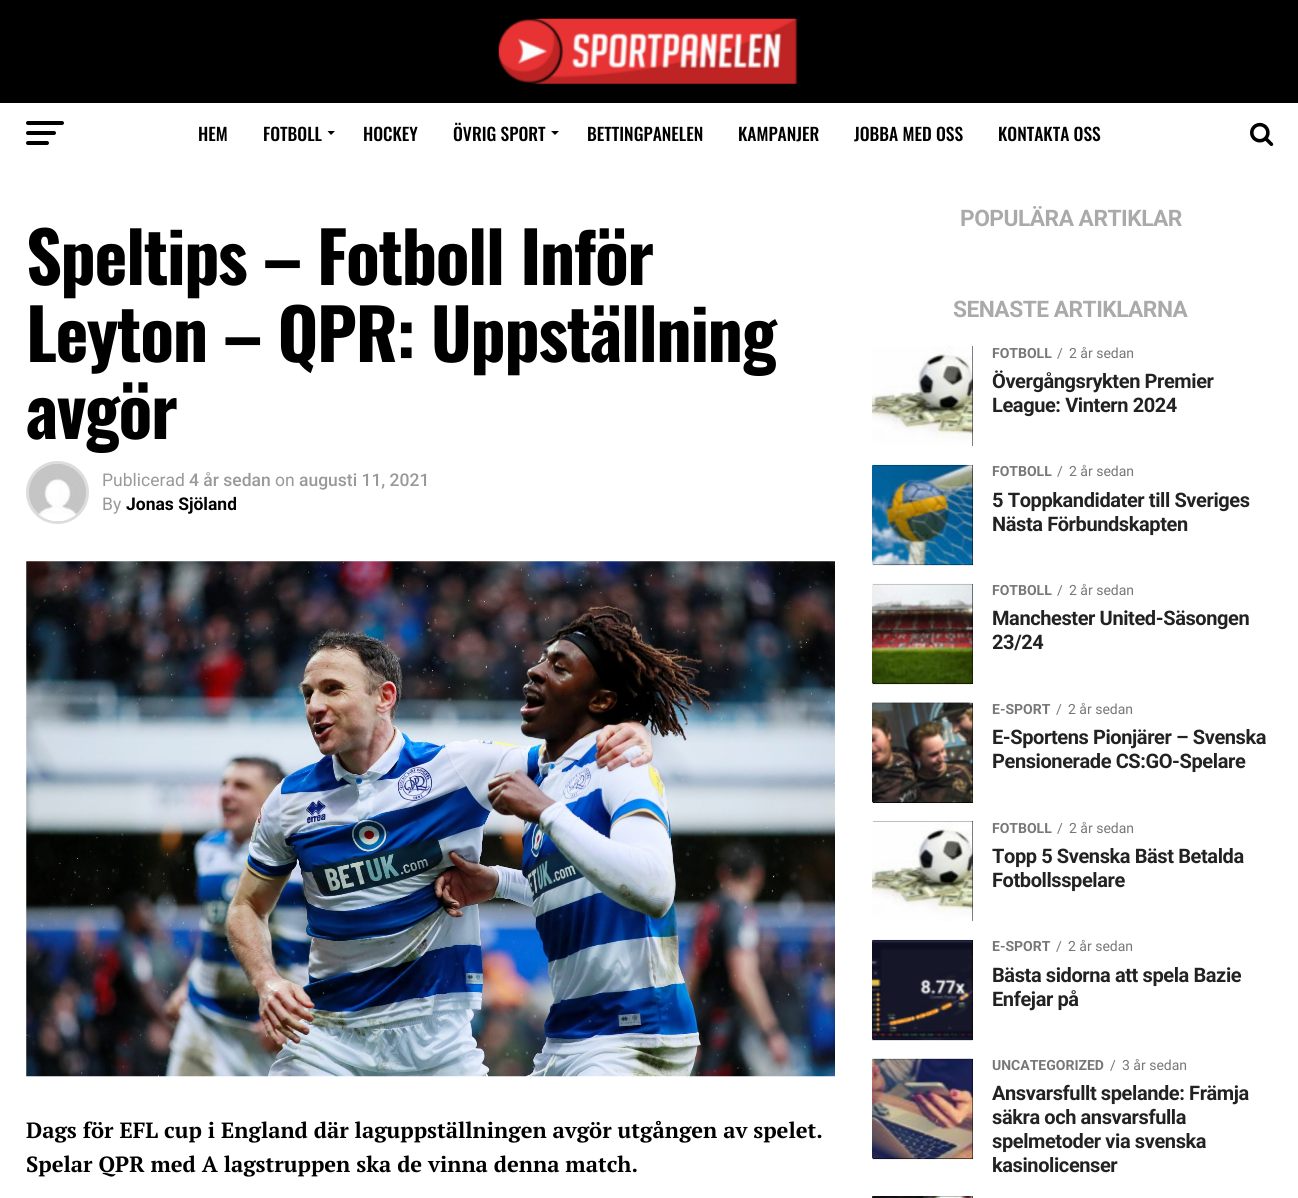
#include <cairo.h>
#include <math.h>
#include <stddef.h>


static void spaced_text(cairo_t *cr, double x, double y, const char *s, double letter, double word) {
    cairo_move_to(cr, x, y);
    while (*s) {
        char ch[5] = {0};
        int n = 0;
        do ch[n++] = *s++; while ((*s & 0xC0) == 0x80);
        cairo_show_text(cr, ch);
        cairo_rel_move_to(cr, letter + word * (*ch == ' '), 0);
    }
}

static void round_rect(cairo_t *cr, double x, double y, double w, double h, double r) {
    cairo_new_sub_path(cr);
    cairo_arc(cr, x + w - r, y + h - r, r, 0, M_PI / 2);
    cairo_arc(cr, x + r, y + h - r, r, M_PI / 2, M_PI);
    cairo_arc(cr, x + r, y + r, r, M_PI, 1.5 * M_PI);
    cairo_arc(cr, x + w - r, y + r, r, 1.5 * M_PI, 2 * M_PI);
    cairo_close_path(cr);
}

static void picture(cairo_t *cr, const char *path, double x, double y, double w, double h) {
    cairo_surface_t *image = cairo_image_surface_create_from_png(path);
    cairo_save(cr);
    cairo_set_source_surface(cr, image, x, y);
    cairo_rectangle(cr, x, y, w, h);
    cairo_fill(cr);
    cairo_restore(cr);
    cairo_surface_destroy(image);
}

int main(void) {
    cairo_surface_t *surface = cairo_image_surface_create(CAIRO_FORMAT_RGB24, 1298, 1198);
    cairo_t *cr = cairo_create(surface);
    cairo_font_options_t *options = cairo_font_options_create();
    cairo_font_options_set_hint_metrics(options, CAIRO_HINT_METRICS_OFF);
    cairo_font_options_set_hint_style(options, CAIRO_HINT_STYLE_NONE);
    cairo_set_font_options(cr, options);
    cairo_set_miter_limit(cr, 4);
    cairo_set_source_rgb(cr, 1, 1, 1);
    cairo_paint(cr);
    cairo_set_source_rgb(cr, 0, 0, 0);
    cairo_rectangle(cr, 0, 0, 1298, 103);
    cairo_fill(cr);
    picture(cr, "img1.png", 498, 18, 300, 66);
    round_rect(cr, 26, 121, 38, 4, 2);
    cairo_fill(cr);
    round_rect(cr, 26, 131, 30, 4, 2);
    cairo_fill(cr);
    round_rect(cr, 26, 141, 23, 4, 2);
    cairo_fill(cr);
    cairo_select_font_face(cr, "Oswald Medium", CAIRO_FONT_SLANT_NORMAL, CAIRO_FONT_WEIGHT_NORMAL);
    cairo_set_font_size(cr, 17.5);
    cairo_move_to(cr, 198, 141);
    cairo_show_text(cr, "HEM");
    cairo_move_to(cr, 263, 141);
    cairo_show_text(cr, "FOTBOLL");
    cairo_new_path(cr);
    cairo_move_to(cr, 327.5, 131);
    cairo_line_to(cr, 335, 131);
    cairo_line_to(cr, 331, 135);
    cairo_close_path(cr);
    cairo_fill(cr);
    cairo_move_to(cr, 363, 141);
    cairo_show_text(cr, "HOCKEY");
    cairo_move_to(cr, 453, 141);
    cairo_show_text(cr, "ÖVRIG SPORT");
    cairo_new_path(cr);
    cairo_move_to(cr, 551, 131);
    cairo_line_to(cr, 559, 131);
    cairo_line_to(cr, 555, 135);
    cairo_close_path(cr);
    cairo_fill(cr);
    cairo_move_to(cr, 587, 141);
    cairo_show_text(cr, "BETTINGPANELEN");
    cairo_move_to(cr, 738, 141);
    cairo_show_text(cr, "KAMPANJER");
    cairo_move_to(cr, 854, 141);
    cairo_show_text(cr, "JOBBA MED OSS");
    cairo_move_to(cr, 998, 141);
    cairo_show_text(cr, "KONTAKTA OSS");
    picture(cr, "img2.png", 1250, 122, 24, 25);
    cairo_select_font_face(cr, "Oswald", CAIRO_FONT_SLANT_NORMAL, CAIRO_FONT_WEIGHT_BOLD);
    cairo_set_font_size(cr, 70);
    spaced_text(cr, 26, 285, "Speltips – Fotboll Inför", -1.4, 0);
    spaced_text(cr, 26, 362, "Leyton – QPR: Uppställning", -1.4, 0);
    spaced_text(cr, 26, 439, "avgör", -1.4, 0);
    cairo_new_path(cr);
    cairo_arc(cr, 57.5, 492.5, 30, 0, 2 * M_PI);
    cairo_set_source_rgb(cr, 0.867, 0.867, 0.867);
    cairo_set_line_width(cr, 3);
    cairo_stroke(cr);
    picture(cr, "img3.png", 29, 464, 57, 57);
    cairo_select_font_face(cr, "Roboto", CAIRO_FONT_SLANT_NORMAL, CAIRO_FONT_WEIGHT_NORMAL);
    cairo_set_font_size(cr, 17.5);
    cairo_set_source_rgb(cr, 0.6, 0.6, 0.6);
    cairo_move_to(cr, 102, 486);
    cairo_show_text(cr, "Publicerad");
    cairo_select_font_face(cr, "Roboto Medium", CAIRO_FONT_SLANT_NORMAL, CAIRO_FONT_WEIGHT_NORMAL);
    cairo_move_to(cr, 189, 486);
    cairo_show_text(cr, "4 år sedan");
    cairo_select_font_face(cr, "Roboto", CAIRO_FONT_SLANT_NORMAL, CAIRO_FONT_WEIGHT_NORMAL);
    cairo_move_to(cr, 275, 486);
    cairo_show_text(cr, "on");
    cairo_select_font_face(cr, "Roboto Medium", CAIRO_FONT_SLANT_NORMAL, CAIRO_FONT_WEIGHT_NORMAL);
    cairo_move_to(cr, 299, 486);
    cairo_show_text(cr, "augusti 11, 2021");
    cairo_select_font_face(cr, "Roboto", CAIRO_FONT_SLANT_NORMAL, CAIRO_FONT_WEIGHT_NORMAL);
    cairo_move_to(cr, 102, 510);
    cairo_show_text(cr, "By");
    cairo_select_font_face(cr, "Roboto", CAIRO_FONT_SLANT_NORMAL, CAIRO_FONT_WEIGHT_BOLD);
    cairo_set_source_rgb(cr, 0, 0, 0);
    cairo_move_to(cr, 126, 510);
    cairo_show_text(cr, "Jonas Sjöland");
    picture(cr, "img4.png", 26, 561, 809, 516);
    cairo_select_font_face(cr, "PT Serif", CAIRO_FONT_SLANT_NORMAL, CAIRO_FONT_WEIGHT_BOLD);
    cairo_set_font_size(cr, 22);
    cairo_move_to(cr, 26, 1138);
    cairo_show_text(cr, "Dags för EFL cup i England där laguppställningen avgör utgången av spelet.");
    cairo_move_to(cr, 26, 1172);
    cairo_show_text(cr, "Spelar QPR med A lagstruppen ska de vinna denna match.");
    cairo_select_font_face(cr, "Roboto", CAIRO_FONT_SLANT_NORMAL, CAIRO_FONT_WEIGHT_BOLD);
    cairo_set_font_size(cr, 22.75);
    cairo_set_source_rgb(cr, 0.667, 0.667, 0.667);
    spaced_text(cr, 960, 226, "POPULÄRA ARTIKLAR", -0.5, 0);
    spaced_text(cr, 953, 317, "SENASTE ARTIKLARNA", -0.5, 0);
    cairo_set_source_rgb(cr, 0, 0, 0);
    cairo_rectangle(cr, 972, 346, 1, 100);
    cairo_fill(cr);
    picture(cr, "img5.png", 872, 346, 101, 100);
    cairo_set_font_size(cr, 14);
    cairo_set_source_rgb(cr, 0.467, 0.467, 0.467);
    cairo_move_to(cr, 992, 358);
    cairo_show_text(cr, "FOTBOLL");
    cairo_select_font_face(cr, "Roboto", CAIRO_FONT_SLANT_NORMAL, CAIRO_FONT_WEIGHT_NORMAL);
    cairo_move_to(cr, 1057, 358);
    cairo_show_text(cr, "/");
    cairo_move_to(cr, 1069, 358);
    cairo_show_text(cr, "2 år sedan");
    cairo_select_font_face(cr, "Roboto", CAIRO_FONT_SLANT_NORMAL, CAIRO_FONT_WEIGHT_BOLD);
    cairo_set_font_size(cr, 20);
    cairo_set_source_rgb(cr, 0.133, 0.133, 0.133);
    spaced_text(cr, 992, 388, "Övergångsrykten Premier", -0.4, 0);
    spaced_text(cr, 992, 412, "League: Vintern 2024", -0.4, 0);
    cairo_set_source_rgb(cr, 0, 0, 0);
    cairo_rectangle(cr, 873, 465, 100, 100);
    cairo_fill(cr);
    picture(cr, "img6.png", 872, 464, 101, 102);
    cairo_set_font_size(cr, 14);
    cairo_set_source_rgb(cr, 0.467, 0.467, 0.467);
    cairo_move_to(cr, 992, 476);
    cairo_show_text(cr, "FOTBOLL");
    cairo_select_font_face(cr, "Roboto", CAIRO_FONT_SLANT_NORMAL, CAIRO_FONT_WEIGHT_NORMAL);
    cairo_move_to(cr, 1057, 476);
    cairo_show_text(cr, "/");
    cairo_move_to(cr, 1069, 476);
    cairo_show_text(cr, "2 år sedan");
    cairo_select_font_face(cr, "Roboto", CAIRO_FONT_SLANT_NORMAL, CAIRO_FONT_WEIGHT_BOLD);
    cairo_set_font_size(cr, 20);
    cairo_set_source_rgb(cr, 0.133, 0.133, 0.133);
    spaced_text(cr, 992, 507, "5 Toppkandidater till Sveriges", -0.4, 0);
    spaced_text(cr, 992, 531, "Nästa Förbundskapten", -0.4, 0);
    cairo_set_source_rgb(cr, 0, 0, 0);
    cairo_rectangle(cr, 873, 584, 100, 100);
    cairo_fill(cr);
    picture(cr, "img7.png", 872, 583, 101, 102);
    cairo_set_font_size(cr, 14);
    cairo_set_source_rgb(cr, 0.467, 0.467, 0.467);
    cairo_move_to(cr, 992, 595);
    cairo_show_text(cr, "FOTBOLL");
    cairo_select_font_face(cr, "Roboto", CAIRO_FONT_SLANT_NORMAL, CAIRO_FONT_WEIGHT_NORMAL);
    cairo_move_to(cr, 1057, 595);
    cairo_show_text(cr, "/");
    cairo_move_to(cr, 1069, 595);
    cairo_show_text(cr, "2 år sedan");
    cairo_select_font_face(cr, "Roboto", CAIRO_FONT_SLANT_NORMAL, CAIRO_FONT_WEIGHT_BOLD);
    cairo_set_font_size(cr, 20);
    cairo_set_source_rgb(cr, 0.133, 0.133, 0.133);
    spaced_text(cr, 992, 625, "Manchester United-Säsongen", -0.4, 0);
    spaced_text(cr, 992, 649, "23/24", -0.4, 0);
    cairo_set_source_rgb(cr, 0, 0, 0);
    cairo_rectangle(cr, 873, 703, 100, 100);
    cairo_fill(cr);
    picture(cr, "img8.png", 872, 702, 101, 101);
    cairo_set_font_size(cr, 14);
    cairo_set_source_rgb(cr, 0.467, 0.467, 0.467);
    cairo_move_to(cr, 992, 714);
    cairo_show_text(cr, "E-SPORT");
    cairo_select_font_face(cr, "Roboto", CAIRO_FONT_SLANT_NORMAL, CAIRO_FONT_WEIGHT_NORMAL);
    cairo_move_to(cr, 1056, 714);
    cairo_show_text(cr, "/");
    cairo_move_to(cr, 1068, 714);
    cairo_show_text(cr, "2 år sedan");
    cairo_select_font_face(cr, "Roboto", CAIRO_FONT_SLANT_NORMAL, CAIRO_FONT_WEIGHT_BOLD);
    cairo_set_font_size(cr, 20);
    cairo_set_source_rgb(cr, 0.133, 0.133, 0.133);
    spaced_text(cr, 992, 744, "E-Sportens Pionjärer – Svenska", -0.4, 0);
    spaced_text(cr, 992, 768, "Pensionerade CS:GO-Spelare", -0.4, 0);
    cairo_set_source_rgb(cr, 0, 0, 0);
    cairo_rectangle(cr, 873, 821, 100, 100);
    cairo_fill(cr);
    picture(cr, "img9.png", 872, 821, 101, 100);
    cairo_set_font_size(cr, 14);
    cairo_set_source_rgb(cr, 0.467, 0.467, 0.467);
    cairo_move_to(cr, 992, 833);
    cairo_show_text(cr, "FOTBOLL");
    cairo_select_font_face(cr, "Roboto", CAIRO_FONT_SLANT_NORMAL, CAIRO_FONT_WEIGHT_NORMAL);
    cairo_move_to(cr, 1057, 833);
    cairo_show_text(cr, "/");
    cairo_move_to(cr, 1069, 833);
    cairo_show_text(cr, "2 år sedan");
    cairo_select_font_face(cr, "Roboto", CAIRO_FONT_SLANT_NORMAL, CAIRO_FONT_WEIGHT_BOLD);
    cairo_set_font_size(cr, 20);
    cairo_set_source_rgb(cr, 0.133, 0.133, 0.133);
    spaced_text(cr, 992, 863, "Topp 5 Svenska Bäst Betalda", -0.4, 0);
    spaced_text(cr, 992, 887, "Fotbollsspelare", -0.4, 0);
    cairo_set_source_rgb(cr, 0, 0, 0);
    cairo_rectangle(cr, 873, 940, 100, 100);
    cairo_fill(cr);
    picture(cr, "img10.png", 872, 939, 101, 102);
    cairo_set_font_size(cr, 14);
    cairo_set_source_rgb(cr, 0.467, 0.467, 0.467);
    cairo_move_to(cr, 992, 951);
    cairo_show_text(cr, "E-SPORT");
    cairo_select_font_face(cr, "Roboto", CAIRO_FONT_SLANT_NORMAL, CAIRO_FONT_WEIGHT_NORMAL);
    cairo_move_to(cr, 1056, 951);
    cairo_show_text(cr, "/");
    cairo_move_to(cr, 1068, 951);
    cairo_show_text(cr, "2 år sedan");
    cairo_select_font_face(cr, "Roboto", CAIRO_FONT_SLANT_NORMAL, CAIRO_FONT_WEIGHT_BOLD);
    cairo_set_font_size(cr, 20);
    cairo_set_source_rgb(cr, 0.133, 0.133, 0.133);
    spaced_text(cr, 992, 982, "Bästa sidorna att spela Bazie", -0.4, 0);
    spaced_text(cr, 992, 1006, "Enfejar på", -0.4, 0);
    cairo_set_source_rgb(cr, 0, 0, 0);
    cairo_rectangle(cr, 873, 1059, 100, 100);
    cairo_fill(cr);
    picture(cr, "img11.png", 872, 1058, 101, 102);
    cairo_set_font_size(cr, 14);
    cairo_set_source_rgb(cr, 0.467, 0.467, 0.467);
    cairo_move_to(cr, 992, 1070);
    cairo_show_text(cr, "UNCATEGORIZED");
    cairo_select_font_face(cr, "Roboto", CAIRO_FONT_SLANT_NORMAL, CAIRO_FONT_WEIGHT_NORMAL);
    cairo_move_to(cr, 1110, 1070);
    cairo_show_text(cr, "/");
    cairo_move_to(cr, 1122, 1070);
    cairo_show_text(cr, "3 år sedan");
    cairo_select_font_face(cr, "Roboto", CAIRO_FONT_SLANT_NORMAL, CAIRO_FONT_WEIGHT_BOLD);
    cairo_set_font_size(cr, 20);
    cairo_set_source_rgb(cr, 0.133, 0.133, 0.133);
    spaced_text(cr, 992, 1100, "Ansvarsfullt spelande: Främja", -0.4, 0);
    spaced_text(cr, 992, 1124, "säkra och ansvarsfulla", -0.4, 0);
    spaced_text(cr, 992, 1148, "spelmetoder via svenska", -0.4, 0);
    spaced_text(cr, 992, 1172, "kasinolicenser", -0.4, 0);
    cairo_set_source_rgb(cr, 0, 0, 0);
    cairo_rectangle(cr, 873, 1196, 100, 2);
    cairo_fill(cr);
    picture(cr, "img12.png", 872, 1196, 101, 2);
    cairo_surface_write_to_png(surface, "page.png");
    cairo_font_options_destroy(options);
    cairo_destroy(cr);
    cairo_surface_destroy(surface);
    return 0;
}
